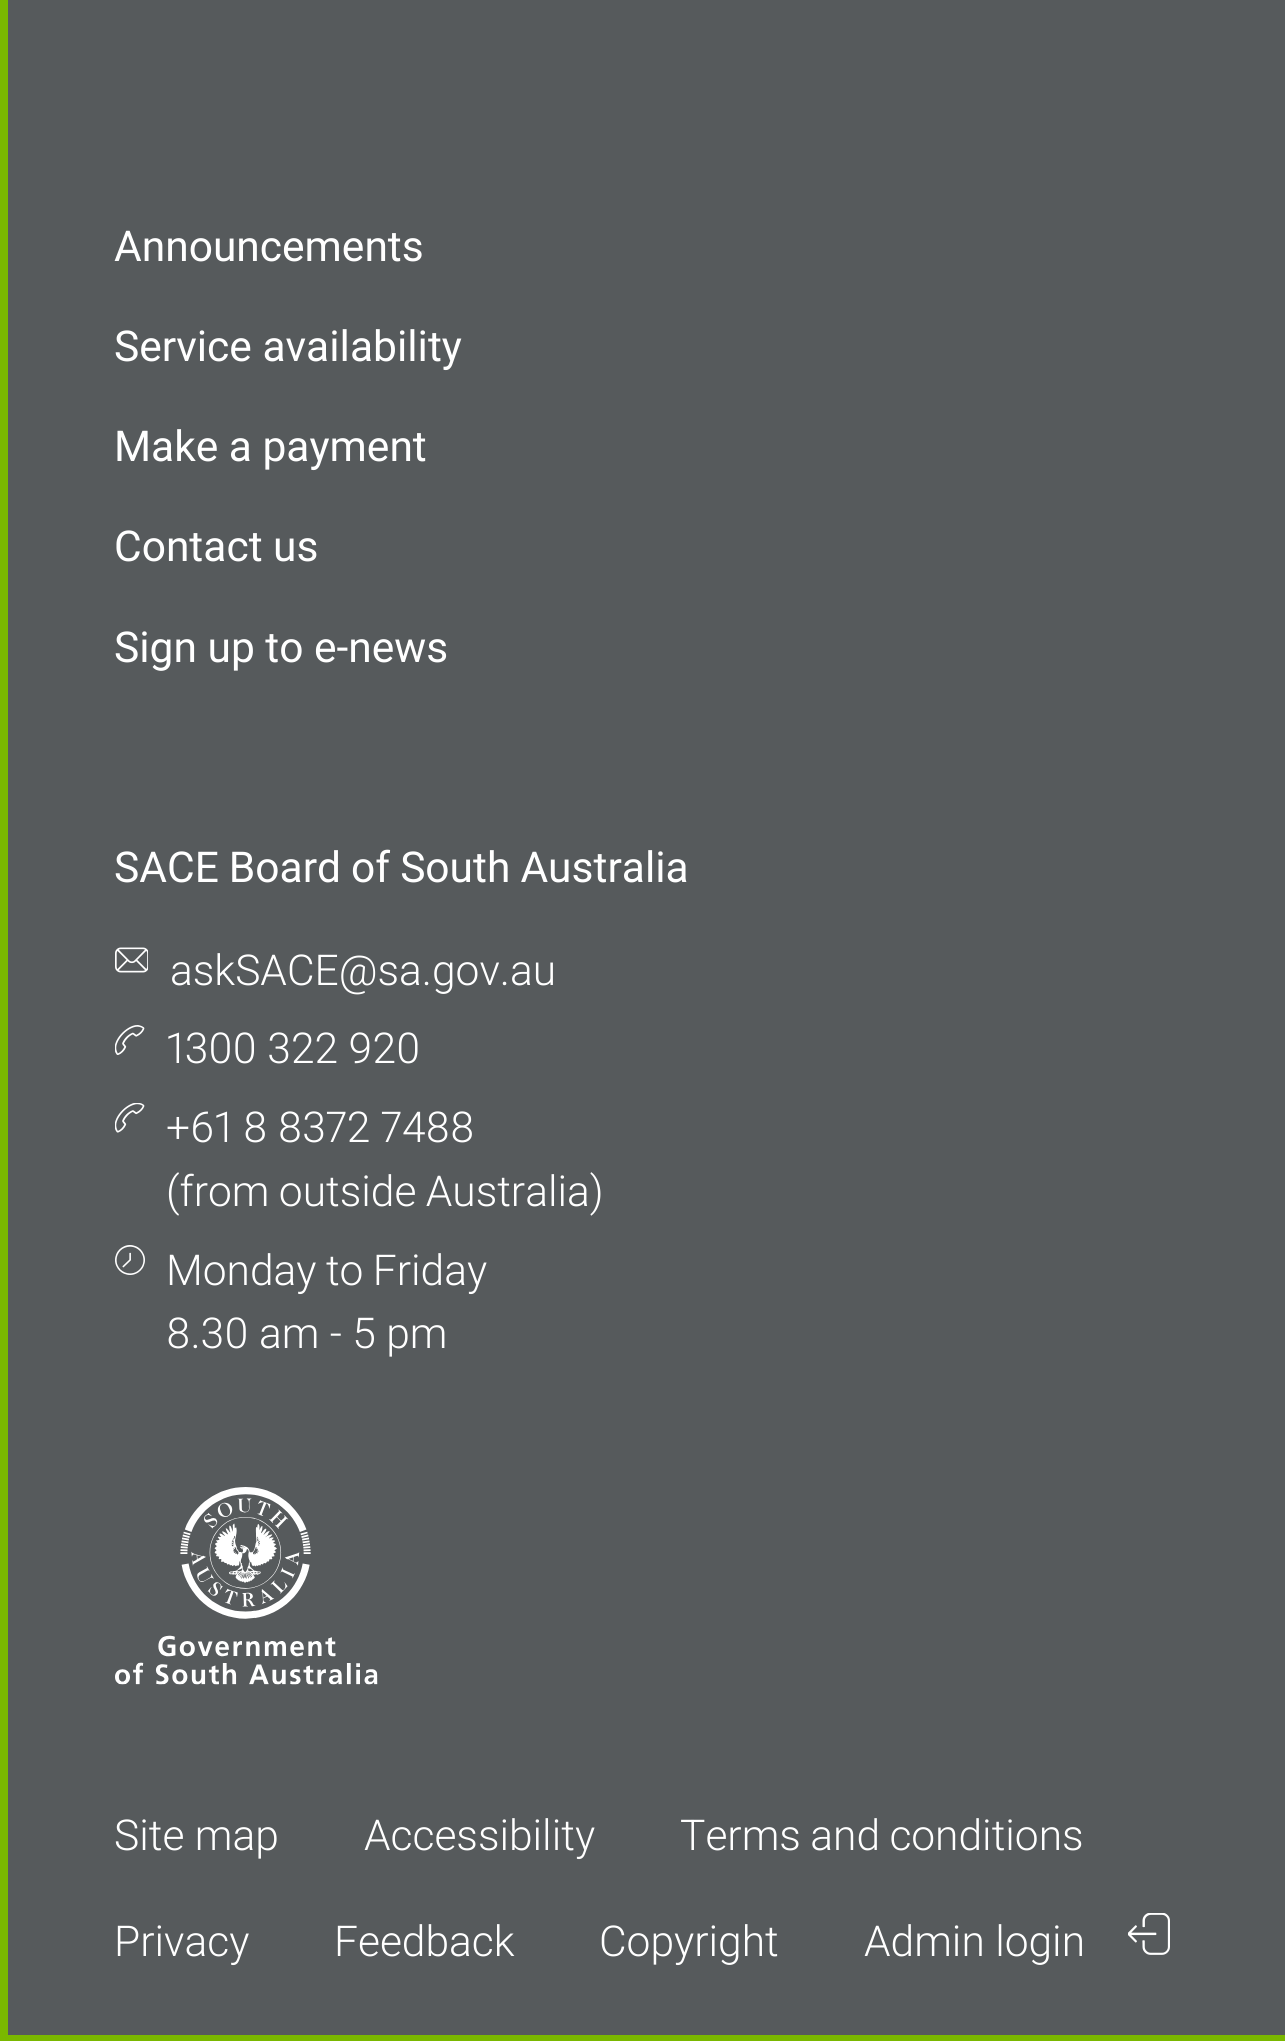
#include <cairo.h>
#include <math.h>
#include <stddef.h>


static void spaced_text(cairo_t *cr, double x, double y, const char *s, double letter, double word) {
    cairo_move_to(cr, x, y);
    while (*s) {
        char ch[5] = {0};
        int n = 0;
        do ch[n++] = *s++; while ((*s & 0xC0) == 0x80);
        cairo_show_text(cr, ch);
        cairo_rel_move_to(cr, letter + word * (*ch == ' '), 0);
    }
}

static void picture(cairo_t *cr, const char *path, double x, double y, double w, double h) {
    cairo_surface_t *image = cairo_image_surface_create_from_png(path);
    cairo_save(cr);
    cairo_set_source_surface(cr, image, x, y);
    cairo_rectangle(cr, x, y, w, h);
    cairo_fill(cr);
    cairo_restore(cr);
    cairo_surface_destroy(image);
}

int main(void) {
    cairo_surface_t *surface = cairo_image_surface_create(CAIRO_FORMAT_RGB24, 1285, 2041);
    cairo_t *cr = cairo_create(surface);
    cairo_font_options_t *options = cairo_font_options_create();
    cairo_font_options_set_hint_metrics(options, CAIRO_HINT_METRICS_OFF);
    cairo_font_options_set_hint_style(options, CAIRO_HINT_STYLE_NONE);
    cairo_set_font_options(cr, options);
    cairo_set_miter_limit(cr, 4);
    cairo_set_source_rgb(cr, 0.337, 0.353, 0.361);
    cairo_paint(cr);
    cairo_set_source_rgb(cr, 0.478, 0.722, 0);
    cairo_rectangle(cr, 0, 2035, 1285, 6);
    cairo_fill(cr);
    cairo_rectangle(cr, 0, 0, 8, 2041);
    cairo_fill(cr);
    cairo_select_font_face(cr, "Roboto", CAIRO_FONT_SLANT_NORMAL, CAIRO_FONT_WEIGHT_NORMAL);
    cairo_set_font_size(cr, 42.5);
    cairo_set_source_rgb(cr, 1, 1, 1);
    cairo_move_to(cr, 114, 261);
    cairo_show_text(cr, "Announcements");
    cairo_move_to(cr, 114, 361);
    cairo_show_text(cr, "Service availability");
    cairo_move_to(cr, 114, 461);
    cairo_show_text(cr, "Make a payment");
    cairo_move_to(cr, 114, 561);
    cairo_show_text(cr, "Contact us");
    cairo_move_to(cr, 114, 662);
    cairo_show_text(cr, "Sign up to e-news");
    spaced_text(cr, 114, 882, "SACE Board of South Australia", 0, -0.5);
    picture(cr, "img1.png", 115, 947, 33, 26);
    cairo_select_font_face(cr, "Roboto Light", CAIRO_FONT_SLANT_NORMAL, CAIRO_FONT_WEIGHT_NORMAL);
    cairo_move_to(cr, 170, 985);
    cairo_show_text(cr, "askSACE@sa.gov.au");
    picture(cr, "img2.png", 115, 1025, 30, 30);
    cairo_select_font_face(cr, "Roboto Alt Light", CAIRO_FONT_SLANT_NORMAL, CAIRO_FONT_WEIGHT_NORMAL);
    cairo_move_to(cr, 166, 1063);
    cairo_show_text(cr, "1300 322 920");
    picture(cr, "img3.png", 115, 1103, 30, 30);
    cairo_move_to(cr, 166, 1142);
    cairo_show_text(cr, "+61 8 8372 7488");
    cairo_select_font_face(cr, "Roboto Light", CAIRO_FONT_SLANT_NORMAL, CAIRO_FONT_WEIGHT_NORMAL);
    spaced_text(cr, 166, 1206, "(from outside Australia)", 0, -1);
    picture(cr, "img4.png", 115, 1245, 30, 30);
    spaced_text(cr, 166, 1285, "Monday to Friday", 0, -1);
    cairo_select_font_face(cr, "Roboto Alt Light", CAIRO_FONT_SLANT_NORMAL, CAIRO_FONT_WEIGHT_NORMAL);
    cairo_move_to(cr, 166, 1348);
    cairo_show_text(cr, "8.30 am - 5 pm");
    picture(cr, "img5.png", 115, 1487, 263, 198);
    cairo_select_font_face(cr, "Roboto Light", CAIRO_FONT_SLANT_NORMAL, CAIRO_FONT_WEIGHT_NORMAL);
    cairo_move_to(cr, 114, 1850);
    cairo_show_text(cr, "Site map");
    cairo_move_to(cr, 364, 1850);
    cairo_show_text(cr, "Accessibility");
    spaced_text(cr, 680, 1850, "Terms and conditions", 0, -1);
    cairo_move_to(cr, 114, 1956);
    cairo_show_text(cr, "Privacy");
    cairo_move_to(cr, 334, 1956);
    cairo_show_text(cr, "Feedback");
    cairo_move_to(cr, 599, 1956);
    cairo_show_text(cr, "Copyright");
    cairo_move_to(cr, 864, 1956);
    cairo_show_text(cr, "Admin login");
    picture(cr, "img6.png", 1128, 1913, 42, 42);
    cairo_surface_write_to_png(surface, "page.png");
    cairo_font_options_destroy(options);
    cairo_destroy(cr);
    cairo_surface_destroy(surface);
    return 0;
}
